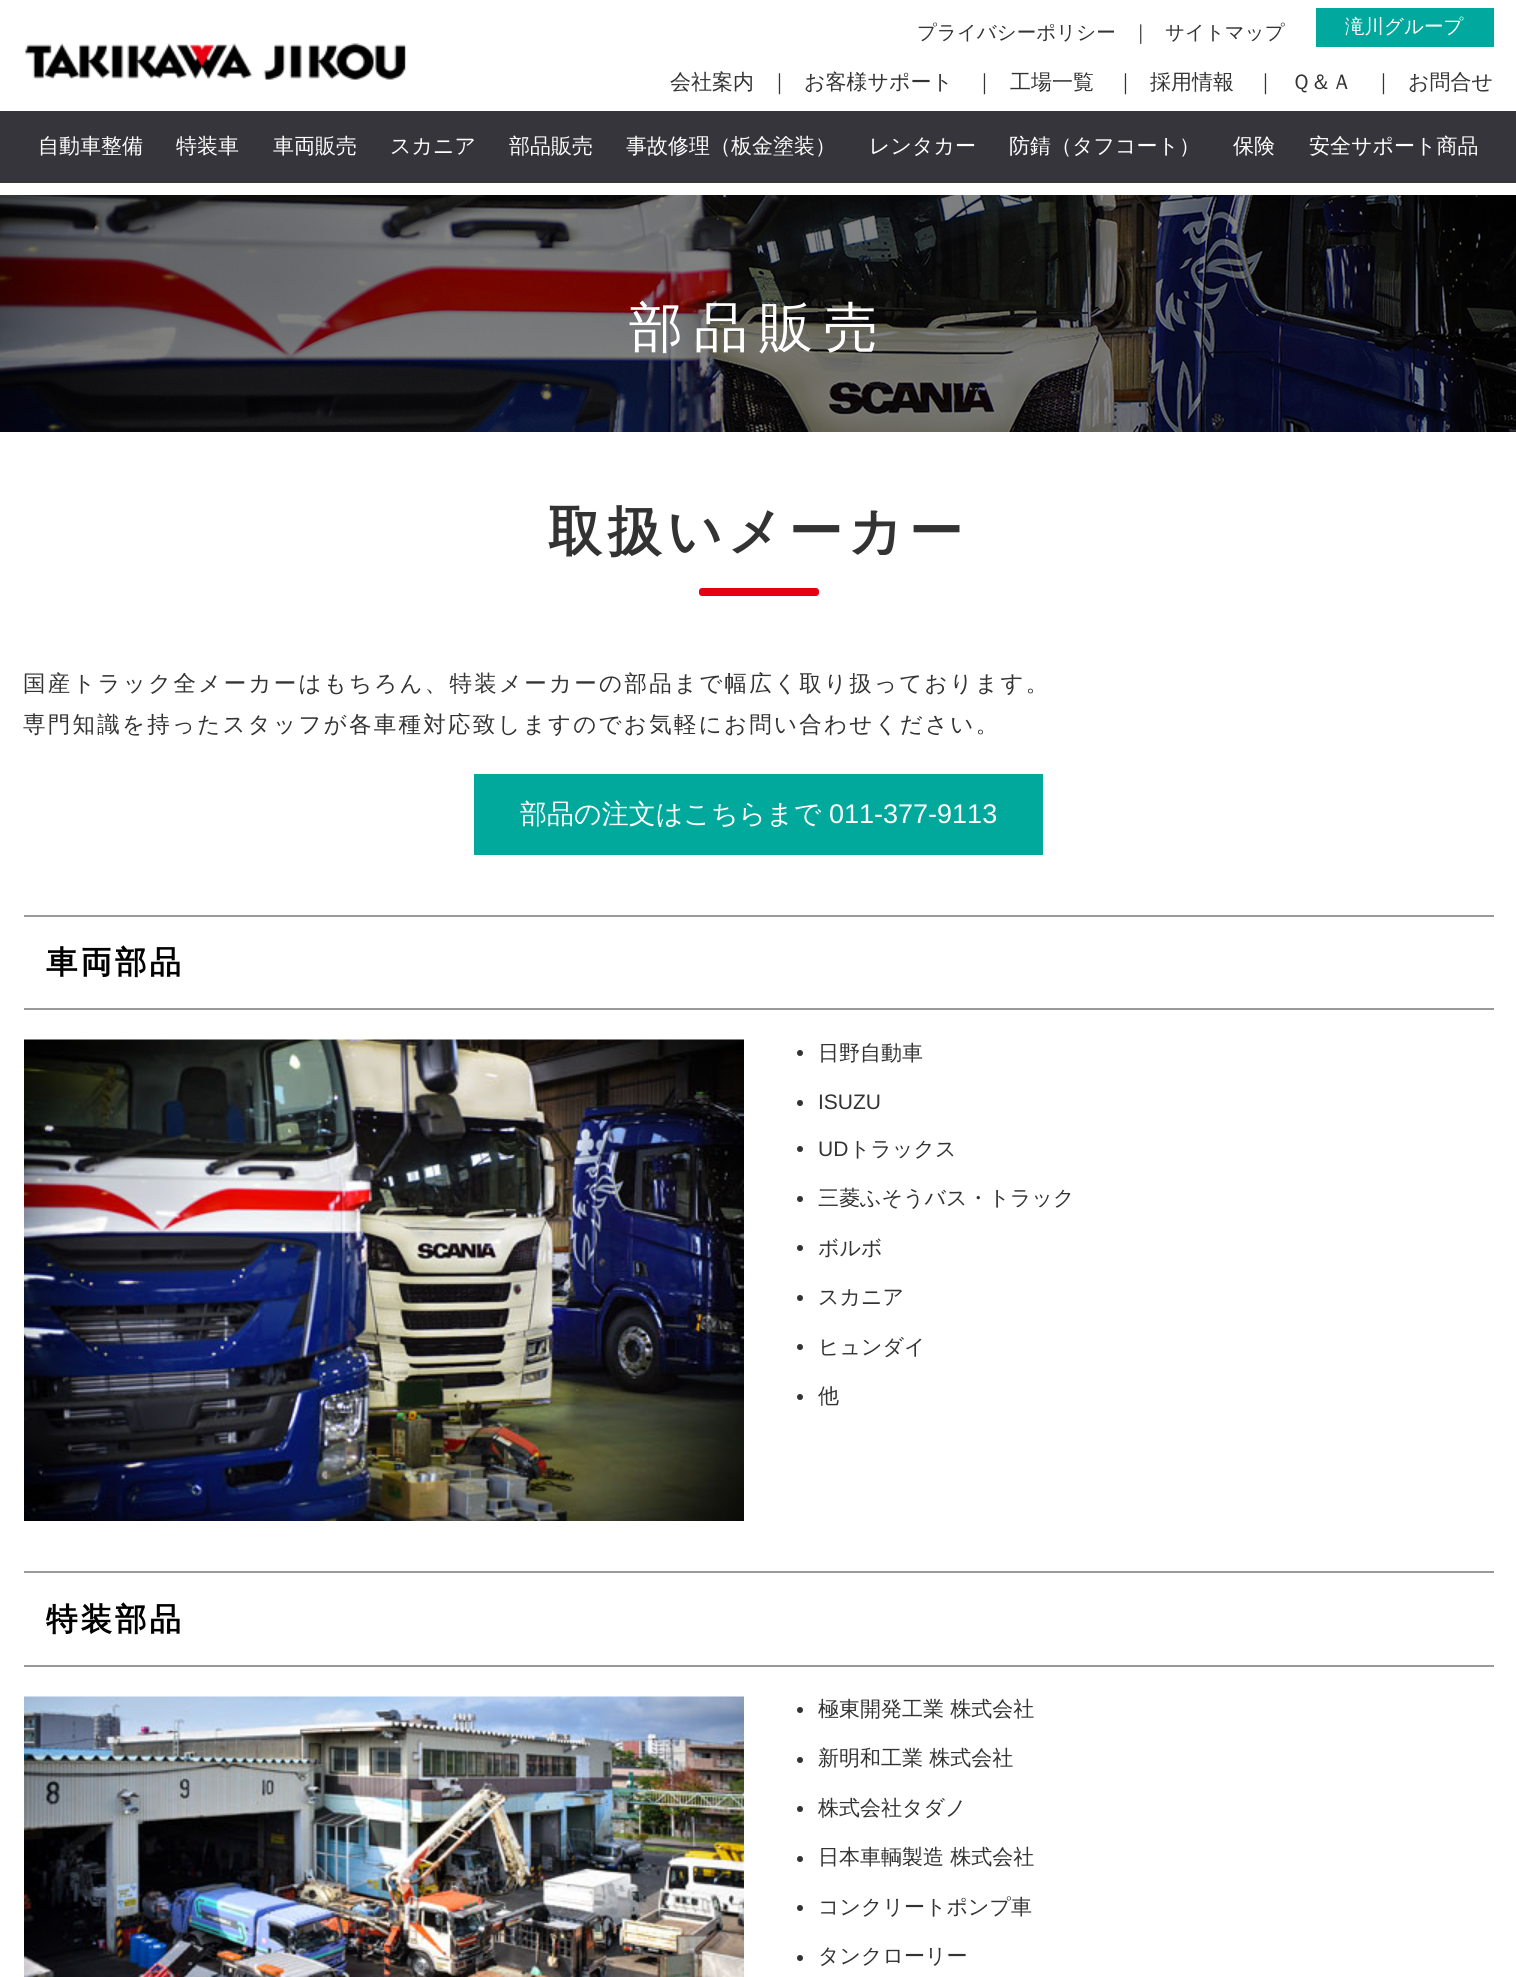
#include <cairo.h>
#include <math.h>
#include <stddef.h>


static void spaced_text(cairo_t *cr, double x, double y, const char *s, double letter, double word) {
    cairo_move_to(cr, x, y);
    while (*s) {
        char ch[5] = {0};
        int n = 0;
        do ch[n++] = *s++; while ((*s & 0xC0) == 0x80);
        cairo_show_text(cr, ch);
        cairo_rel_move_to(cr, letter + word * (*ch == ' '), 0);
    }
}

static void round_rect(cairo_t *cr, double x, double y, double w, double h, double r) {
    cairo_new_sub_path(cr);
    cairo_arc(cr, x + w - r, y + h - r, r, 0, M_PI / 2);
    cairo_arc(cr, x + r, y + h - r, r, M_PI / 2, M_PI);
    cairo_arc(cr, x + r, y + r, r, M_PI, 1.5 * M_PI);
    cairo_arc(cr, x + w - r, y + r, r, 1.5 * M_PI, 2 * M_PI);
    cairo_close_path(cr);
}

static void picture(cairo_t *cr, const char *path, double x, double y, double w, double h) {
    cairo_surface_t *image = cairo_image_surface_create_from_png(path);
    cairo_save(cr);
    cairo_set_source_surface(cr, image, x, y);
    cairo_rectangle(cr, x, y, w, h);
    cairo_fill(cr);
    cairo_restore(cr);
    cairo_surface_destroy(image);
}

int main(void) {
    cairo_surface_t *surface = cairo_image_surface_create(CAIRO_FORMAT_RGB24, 1516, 1977);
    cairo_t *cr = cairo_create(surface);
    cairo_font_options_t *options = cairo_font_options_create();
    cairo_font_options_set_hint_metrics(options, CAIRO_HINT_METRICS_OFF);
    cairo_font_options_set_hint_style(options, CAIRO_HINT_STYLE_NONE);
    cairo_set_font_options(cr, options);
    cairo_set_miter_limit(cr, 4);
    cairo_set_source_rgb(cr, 1, 1, 1);
    cairo_paint(cr);
    picture(cr, "img1.png", 25, 43, 381, 37);
    cairo_select_font_face(cr, "WenQuanYi Zen Hei Medium", CAIRO_FONT_SLANT_NORMAL, CAIRO_FONT_WEIGHT_NORMAL);
    cairo_set_font_size(cr, 19.5);
    cairo_set_source_rgb(cr, 0.2, 0.2, 0.2);
    cairo_move_to(cr, 917, 39);
    cairo_show_text(cr, "プライバシーポリシー");
    cairo_move_to(cr, 1131, 39);
    cairo_show_text(cr, "｜");
    cairo_move_to(cr, 1165, 39);
    cairo_show_text(cr, "サイトマップ");
    cairo_set_source_rgb(cr, 0.004, 0.659, 0.62);
    cairo_rectangle(cr, 1316, 8, 178, 39);
    cairo_fill(cr);
    cairo_set_source_rgb(cr, 1, 1, 1);
    cairo_move_to(cr, 1345, 33);
    cairo_show_text(cr, "滝川グループ");
    cairo_set_font_size(cr, 21);
    cairo_set_source_rgb(cr, 0.2, 0.2, 0.2);
    cairo_move_to(cr, 670, 89);
    cairo_show_text(cr, "会社案内");
    cairo_move_to(cr, 769, 89);
    cairo_show_text(cr, "｜");
    cairo_move_to(cr, 804, 89);
    cairo_show_text(cr, "お客様サポート");
    cairo_move_to(cr, 974, 89);
    cairo_show_text(cr, "｜");
    cairo_move_to(cr, 1010, 89);
    cairo_show_text(cr, "工場一覧");
    cairo_move_to(cr, 1115, 89);
    cairo_show_text(cr, "｜");
    cairo_move_to(cr, 1150, 89);
    cairo_show_text(cr, "採用情報");
    cairo_move_to(cr, 1255, 89);
    cairo_show_text(cr, "｜");
    cairo_move_to(cr, 1291, 89);
    cairo_show_text(cr, "Ｑ＆Ａ");
    cairo_move_to(cr, 1373, 89);
    cairo_show_text(cr, "｜");
    cairo_move_to(cr, 1408, 89);
    cairo_show_text(cr, "お問合せ");
    cairo_set_source_rgb(cr, 0.212, 0.208, 0.231);
    cairo_rectangle(cr, 0, 111, 1516, 72);
    cairo_fill(cr);
    cairo_set_source_rgb(cr, 1, 1, 1);
    cairo_move_to(cr, 38, 153);
    cairo_show_text(cr, "自動車整備");
    cairo_move_to(cr, 176, 153);
    cairo_show_text(cr, "特装車");
    cairo_move_to(cr, 273, 153);
    cairo_show_text(cr, "車両販売");
    cairo_move_to(cr, 390, 153);
    cairo_show_text(cr, "スカニア");
    cairo_move_to(cr, 509, 153);
    cairo_show_text(cr, "部品販売");
    cairo_move_to(cr, 626, 153);
    cairo_show_text(cr, "事故修理（板金塗装）");
    cairo_move_to(cr, 869, 153);
    cairo_show_text(cr, "レンタカー");
    cairo_move_to(cr, 1009, 153);
    cairo_show_text(cr, "防錆（タフコート）");
    cairo_move_to(cr, 1233, 153);
    cairo_show_text(cr, "保険");
    cairo_move_to(cr, 1309, 153);
    cairo_show_text(cr, "安全サポート商品");
    cairo_set_source_rgb(cr, 0, 0, 0);
    cairo_rectangle(cr, 0, 195, 1516, 237);
    cairo_fill(cr);
    picture(cr, "img2.png", 0, 195, 1516, 237);
    cairo_set_font_size(cr, 54);
    cairo_set_source_rgb(cr, 1, 1, 1);
    spaced_text(cr, 629, 346, "部品販売", 11, 0);
    cairo_select_font_face(cr, "WenQuanYi Zen Hei", CAIRO_FONT_SLANT_NORMAL, CAIRO_FONT_WEIGHT_BOLD);
    cairo_set_source_rgb(cr, 0.2, 0.2, 0.2);
    spaced_text(cr, 548, 550, "取扱いメーカー", 5.5, 0);
    cairo_set_source_rgb(cr, 0.902, 0, 0.071);
    round_rect(cr, 699, 588, 120, 8, 3);
    cairo_fill(cr);
    cairo_select_font_face(cr, "WenQuanYi Zen Hei Medium", CAIRO_FONT_SLANT_NORMAL, CAIRO_FONT_WEIGHT_NORMAL);
    cairo_set_font_size(cr, 22.5);
    cairo_set_source_rgb(cr, 0.2, 0.2, 0.2);
    spaced_text(cr, 23, 691, "国産トラック全メーカーはもちろん、特装メーカーの部品まで幅広く取り扱っております。", 2.25, 0);
    spaced_text(cr, 23, 732, "専門知識を持ったスタッフが各車種対応致しますのでお気軽にお問い合わせください。", 2.25, 0);
    cairo_set_source_rgb(cr, 0, 0.663, 0.608);
    cairo_rectangle(cr, 474, 774, 569, 81);
    cairo_fill(cr);
    cairo_set_font_size(cr, 27);
    cairo_set_source_rgb(cr, 1, 1, 1);
    cairo_move_to(cr, 520, 823);
    cairo_show_text(cr, "部品の注文はこちらまで");
    cairo_select_font_face(cr, "Liberation Sans", CAIRO_FONT_SLANT_NORMAL, CAIRO_FONT_WEIGHT_NORMAL);
    cairo_move_to(cr, 829, 823);
    cairo_show_text(cr, "011-377-9113");
    cairo_set_source_rgb(cr, 0.6, 0.6, 0.6);
    cairo_rectangle(cr, 24, 915, 1470, 2);
    cairo_fill(cr);
    cairo_rectangle(cr, 24, 1008, 1470, 2);
    cairo_fill(cr);
    cairo_select_font_face(cr, "WenQuanYi Zen Hei", CAIRO_FONT_SLANT_NORMAL, CAIRO_FONT_WEIGHT_BOLD);
    cairo_set_font_size(cr, 31.5);
    cairo_set_source_rgb(cr, 0, 0, 0);
    spaced_text(cr, 46, 973, "車両部品", 3, 0);
    picture(cr, "img3.png", 24, 1039, 720, 482);
    cairo_set_source_rgb(cr, 0.2, 0.2, 0.2);
    cairo_arc(cr, 800, 1053, 3, 0, 2 * M_PI);
    cairo_fill(cr);
    cairo_select_font_face(cr, "WenQuanYi Zen Hei Medium", CAIRO_FONT_SLANT_NORMAL, CAIRO_FONT_WEIGHT_NORMAL);
    cairo_set_font_size(cr, 21);
    cairo_move_to(cr, 818, 1060);
    cairo_show_text(cr, "日野自動車");
    cairo_new_path(cr);
    cairo_arc(cr, 800, 1103, 3, 0, 2 * M_PI);
    cairo_fill(cr);
    cairo_select_font_face(cr, "Liberation Sans", CAIRO_FONT_SLANT_NORMAL, CAIRO_FONT_WEIGHT_NORMAL);
    cairo_move_to(cr, 818, 1109);
    cairo_show_text(cr, "ISUZU");
    cairo_new_path(cr);
    cairo_arc(cr, 800, 1149, 3, 0, 2 * M_PI);
    cairo_fill(cr);
    cairo_move_to(cr, 818, 1156);
    cairo_show_text(cr, "UD");
    cairo_select_font_face(cr, "WenQuanYi Zen Hei Medium", CAIRO_FONT_SLANT_NORMAL, CAIRO_FONT_WEIGHT_NORMAL);
    cairo_move_to(cr, 849, 1156);
    cairo_show_text(cr, "トラックス");
    cairo_new_path(cr);
    cairo_arc(cr, 800, 1199, 3, 0, 2 * M_PI);
    cairo_fill(cr);
    cairo_move_to(cr, 818, 1205);
    cairo_show_text(cr, "三菱ふそうバス・トラック");
    cairo_new_path(cr);
    cairo_arc(cr, 800, 1248, 3, 0, 2 * M_PI);
    cairo_fill(cr);
    cairo_move_to(cr, 818, 1255);
    cairo_show_text(cr, "ボルボ");
    cairo_new_path(cr);
    cairo_arc(cr, 800, 1298, 3, 0, 2 * M_PI);
    cairo_fill(cr);
    cairo_move_to(cr, 818, 1304);
    cairo_show_text(cr, "スカニア");
    cairo_new_path(cr);
    cairo_arc(cr, 800, 1347, 3, 0, 2 * M_PI);
    cairo_fill(cr);
    cairo_move_to(cr, 818, 1354);
    cairo_show_text(cr, "ヒュンダイ");
    cairo_new_path(cr);
    cairo_arc(cr, 800, 1397, 3, 0, 2 * M_PI);
    cairo_fill(cr);
    cairo_move_to(cr, 818, 1403);
    cairo_show_text(cr, "他");
    cairo_set_source_rgb(cr, 0.6, 0.6, 0.6);
    cairo_rectangle(cr, 24, 1571, 1470, 2);
    cairo_fill(cr);
    cairo_rectangle(cr, 24, 1665, 1470, 2);
    cairo_fill(cr);
    cairo_select_font_face(cr, "WenQuanYi Zen Hei", CAIRO_FONT_SLANT_NORMAL, CAIRO_FONT_WEIGHT_BOLD);
    cairo_set_font_size(cr, 31.5);
    cairo_set_source_rgb(cr, 0, 0, 0);
    spaced_text(cr, 46, 1630, "特装部品", 3, 0);
    picture(cr, "img4.png", 24, 1696, 720, 281);
    cairo_set_source_rgb(cr, 0.2, 0.2, 0.2);
    cairo_arc(cr, 800, 1710, 3, 0, 2 * M_PI);
    cairo_fill(cr);
    cairo_select_font_face(cr, "WenQuanYi Zen Hei Medium", CAIRO_FONT_SLANT_NORMAL, CAIRO_FONT_WEIGHT_NORMAL);
    cairo_set_font_size(cr, 21);
    cairo_move_to(cr, 818, 1716);
    cairo_show_text(cr, "極東開発工業 株式会社");
    cairo_new_path(cr);
    cairo_arc(cr, 800, 1760, 3, 0, 2 * M_PI);
    cairo_fill(cr);
    cairo_move_to(cr, 818, 1765);
    cairo_show_text(cr, "新明和工業 株式会社");
    cairo_new_path(cr);
    cairo_arc(cr, 800, 1809, 3, 0, 2 * M_PI);
    cairo_fill(cr);
    cairo_move_to(cr, 818, 1815);
    cairo_show_text(cr, "株式会社タダノ");
    cairo_new_path(cr);
    cairo_arc(cr, 800, 1859, 3, 0, 2 * M_PI);
    cairo_fill(cr);
    cairo_move_to(cr, 818, 1864);
    cairo_show_text(cr, "日本車輌製造 株式会社");
    cairo_new_path(cr);
    cairo_arc(cr, 800, 1908, 3, 0, 2 * M_PI);
    cairo_fill(cr);
    cairo_move_to(cr, 818, 1914);
    cairo_show_text(cr, "コンクリートポンプ車");
    cairo_new_path(cr);
    cairo_arc(cr, 800, 1958, 3, 0, 2 * M_PI);
    cairo_fill(cr);
    cairo_move_to(cr, 818, 1963);
    cairo_show_text(cr, "タンクローリー");
    cairo_surface_write_to_png(surface, "page.png");
    cairo_font_options_destroy(options);
    cairo_destroy(cr);
    cairo_surface_destroy(surface);
    return 0;
}
